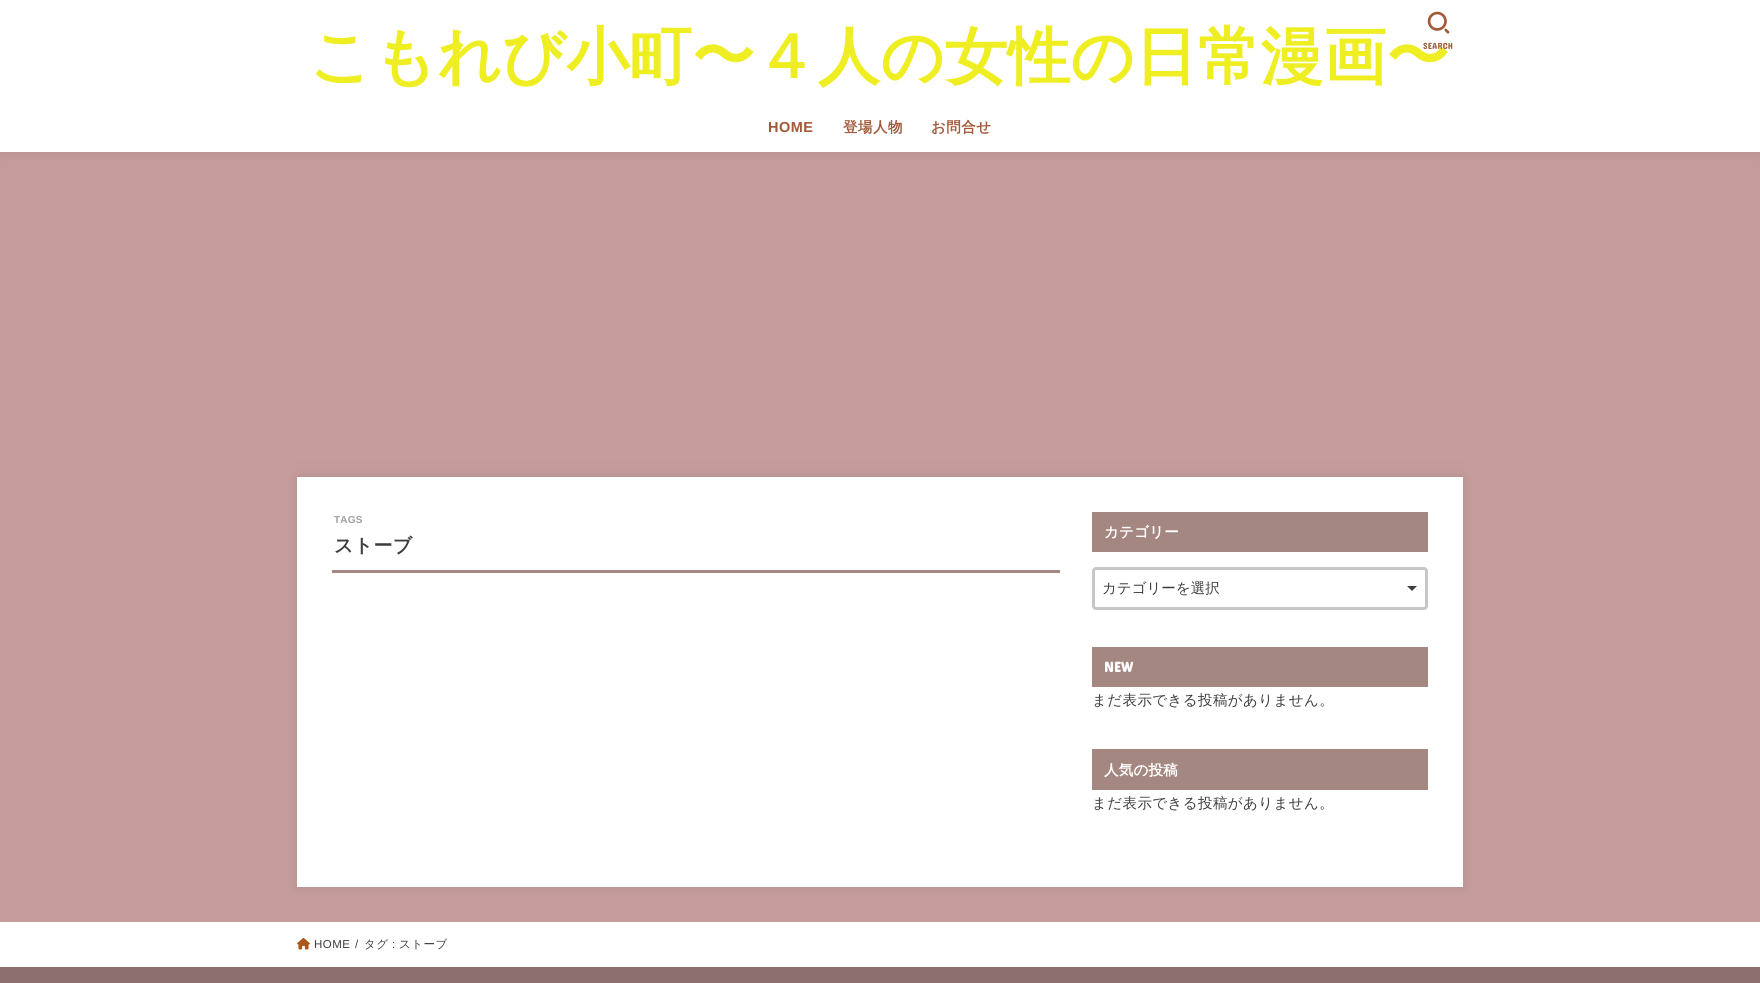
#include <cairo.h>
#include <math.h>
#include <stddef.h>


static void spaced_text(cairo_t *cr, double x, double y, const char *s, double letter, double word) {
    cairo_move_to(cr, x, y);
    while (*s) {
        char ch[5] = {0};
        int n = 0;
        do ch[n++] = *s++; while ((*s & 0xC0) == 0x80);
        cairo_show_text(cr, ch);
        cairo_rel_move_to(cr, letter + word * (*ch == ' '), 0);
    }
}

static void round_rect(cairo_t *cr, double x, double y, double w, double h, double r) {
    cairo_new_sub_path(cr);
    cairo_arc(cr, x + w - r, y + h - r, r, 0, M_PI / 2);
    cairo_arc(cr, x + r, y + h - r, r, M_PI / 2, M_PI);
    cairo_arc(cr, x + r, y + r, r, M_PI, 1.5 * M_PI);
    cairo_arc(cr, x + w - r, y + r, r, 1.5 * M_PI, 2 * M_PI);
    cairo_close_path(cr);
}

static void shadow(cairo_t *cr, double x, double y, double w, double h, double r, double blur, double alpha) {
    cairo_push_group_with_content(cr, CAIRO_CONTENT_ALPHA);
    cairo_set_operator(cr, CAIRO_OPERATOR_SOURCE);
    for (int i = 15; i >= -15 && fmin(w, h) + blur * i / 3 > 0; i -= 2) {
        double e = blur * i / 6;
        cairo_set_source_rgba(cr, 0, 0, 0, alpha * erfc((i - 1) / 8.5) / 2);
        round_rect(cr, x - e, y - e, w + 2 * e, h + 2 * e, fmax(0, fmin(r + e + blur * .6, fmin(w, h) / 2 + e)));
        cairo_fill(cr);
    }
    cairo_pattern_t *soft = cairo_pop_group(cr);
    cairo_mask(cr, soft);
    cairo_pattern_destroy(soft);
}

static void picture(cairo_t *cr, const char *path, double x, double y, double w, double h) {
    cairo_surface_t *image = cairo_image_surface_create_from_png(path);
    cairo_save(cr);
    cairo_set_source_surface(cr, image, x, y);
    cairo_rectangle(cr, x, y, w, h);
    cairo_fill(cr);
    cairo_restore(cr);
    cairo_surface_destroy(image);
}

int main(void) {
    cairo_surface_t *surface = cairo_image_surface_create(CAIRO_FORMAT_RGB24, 1760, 983);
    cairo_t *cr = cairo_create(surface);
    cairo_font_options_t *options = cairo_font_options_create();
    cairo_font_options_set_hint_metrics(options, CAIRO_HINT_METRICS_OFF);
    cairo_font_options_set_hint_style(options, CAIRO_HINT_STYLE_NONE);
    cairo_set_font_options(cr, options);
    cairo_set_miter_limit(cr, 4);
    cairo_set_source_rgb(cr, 0.776, 0.608, 0.608);
    cairo_paint(cr);
    cairo_set_source_rgb(cr, 0.4, 0.4, 0.4);
    shadow(cr, 0, 0, 1760, 152, 0, 7.5, 0.2);
    cairo_set_source_rgb(cr, 1, 1, 1);
    cairo_rectangle(cr, 0, 0, 1760, 152);
    cairo_fill(cr);
    cairo_select_font_face(cr, "WenQuanYi Zen Hei", CAIRO_FONT_SLANT_NORMAL, CAIRO_FONT_WEIGHT_BOLD);
    cairo_set_font_size(cr, 62.6);
    cairo_set_source_rgb(cr, 0.933, 0.933, 0.133);
    spaced_text(cr, 309, 78, "こもれび小町〜４人の女性の日常漫画〜", 0.25, 0);
    picture(cr, "img1.png", 1427, 11, 23, 23);
    cairo_select_font_face(cr, "Concert One", CAIRO_FONT_SLANT_NORMAL, CAIRO_FONT_WEIGHT_NORMAL);
    cairo_set_font_size(cr, 9);
    cairo_set_source_rgb(cr, 0.639, 0.353, 0.227);
    spaced_text(cr, 1423, 49, "SEARCH", 0.25, 0);
    cairo_select_font_face(cr, "Liberation Sans", CAIRO_FONT_SLANT_NORMAL, CAIRO_FONT_WEIGHT_BOLD);
    cairo_set_font_size(cr, 14.5);
    spaced_text(cr, 768, 132, "HOME", 0.5, 0);
    cairo_select_font_face(cr, "WenQuanYi Zen Hei", CAIRO_FONT_SLANT_NORMAL, CAIRO_FONT_WEIGHT_BOLD);
    spaced_text(cr, 843, 132, "登場人物", 0.5, 0);
    spaced_text(cr, 931, 132, "お問合せ", 0.5, 0);
    cairo_set_source_rgb(cr, 0.4, 0.4, 0.4);
    shadow(cr, 297, 477, 1166, 410, 0, 7.5, 0.2);
    cairo_set_source_rgb(cr, 1, 1, 1);
    cairo_rectangle(cr, 297, 477, 1166, 410);
    cairo_fill(cr);
    cairo_set_source_rgb(cr, 0.647, 0.529, 0.506);
    cairo_rectangle(cr, 332, 570, 728, 3);
    cairo_fill(cr);
    cairo_select_font_face(cr, "Liberation Sans", CAIRO_FONT_SLANT_NORMAL, CAIRO_FONT_WEIGHT_BOLD);
    cairo_set_font_size(cr, 10);
    cairo_set_source_rgb(cr, 0.624, 0.624, 0.624);
    spaced_text(cr, 334, 523, "TAGS", 0.25, 0);
    cairo_select_font_face(cr, "WenQuanYi Zen Hei", CAIRO_FONT_SLANT_NORMAL, CAIRO_FONT_WEIGHT_BOLD);
    cairo_set_font_size(cr, 19);
    cairo_set_source_rgb(cr, 0.243, 0.243, 0.243);
    spaced_text(cr, 334, 552, "ストーブ", 0.25, 0);
    cairo_set_source_rgb(cr, 0.647, 0.529, 0.506);
    cairo_rectangle(cr, 1092, 512, 336, 40);
    cairo_fill(cr);
    cairo_set_font_size(cr, 14.5);
    cairo_set_source_rgb(cr, 1, 1, 1);
    spaced_text(cr, 1104, 537, "カテゴリー", 0.25, 0);
    cairo_set_source_rgb(cr, 0.243, 0.243, 0.243);
    cairo_new_path(cr);
    cairo_move_to(cr, 1407, 586);
    cairo_line_to(cr, 1417, 586);
    cairo_line_to(cr, 1412, 591);
    cairo_close_path(cr);
    cairo_fill(cr);
    round_rect(cr, 1093.5, 568.5, 333, 40, 2.5);
    cairo_set_source_rgb(cr, 0.776, 0.776, 0.776);
    cairo_set_line_width(cr, 3);
    cairo_stroke(cr);
    cairo_select_font_face(cr, "WenQuanYi Zen Hei Medium", CAIRO_FONT_SLANT_NORMAL, CAIRO_FONT_WEIGHT_NORMAL);
    cairo_set_source_rgb(cr, 0.243, 0.243, 0.243);
    cairo_move_to(cr, 1102, 593);
    cairo_show_text(cr, "カテゴリーを選択");
    cairo_set_source_rgb(cr, 0.647, 0.529, 0.506);
    cairo_rectangle(cr, 1092, 647, 336, 40);
    cairo_fill(cr);
    cairo_select_font_face(cr, "Concert One", CAIRO_FONT_SLANT_NORMAL, CAIRO_FONT_WEIGHT_BOLD);
    cairo_set_source_rgb(cr, 1, 1, 1);
    spaced_text(cr, 1104, 672, "NEW", 0.25, 0);
    cairo_select_font_face(cr, "WenQuanYi Zen Hei Medium", CAIRO_FONT_SLANT_NORMAL, CAIRO_FONT_WEIGHT_NORMAL);
    cairo_set_source_rgb(cr, 0.243, 0.243, 0.243);
    spaced_text(cr, 1092, 705, "まだ表示できる投稿がありません。", 0.4, 0);
    cairo_set_source_rgb(cr, 0.647, 0.529, 0.506);
    cairo_rectangle(cr, 1092, 749, 336, 41);
    cairo_fill(cr);
    cairo_select_font_face(cr, "WenQuanYi Zen Hei", CAIRO_FONT_SLANT_NORMAL, CAIRO_FONT_WEIGHT_BOLD);
    cairo_set_source_rgb(cr, 1, 1, 1);
    spaced_text(cr, 1104, 775, "人気の投稿", 0.25, 0);
    cairo_select_font_face(cr, "WenQuanYi Zen Hei Medium", CAIRO_FONT_SLANT_NORMAL, CAIRO_FONT_WEIGHT_NORMAL);
    cairo_set_source_rgb(cr, 0.243, 0.243, 0.243);
    spaced_text(cr, 1092, 808, "まだ表示できる投稿がありません。", 0.4, 0);
    cairo_set_source_rgb(cr, 1, 1, 1);
    cairo_rectangle(cr, 0, 922, 1760, 45);
    cairo_fill(cr);
    picture(cr, "img2.png", 297, 937, 13, 13);
    cairo_select_font_face(cr, "Liberation Sans", CAIRO_FONT_SLANT_NORMAL, CAIRO_FONT_WEIGHT_NORMAL);
    cairo_set_font_size(cr, 11.5);
    cairo_set_source_rgb(cr, 0.243, 0.243, 0.243);
    spaced_text(cr, 314, 948, "HOME", 0.5, 0);
    spaced_text(cr, 355, 948, "/", 0.5, 0);
    cairo_select_font_face(cr, "WenQuanYi Zen Hei Medium", CAIRO_FONT_SLANT_NORMAL, CAIRO_FONT_WEIGHT_NORMAL);
    spaced_text(cr, 364, 948, "タグ", 0.5, 0);
    cairo_select_font_face(cr, "Liberation Sans", CAIRO_FONT_SLANT_NORMAL, CAIRO_FONT_WEIGHT_NORMAL);
    spaced_text(cr, 392, 948, ":", 0.5, 0);
    cairo_select_font_face(cr, "WenQuanYi Zen Hei Medium", CAIRO_FONT_SLANT_NORMAL, CAIRO_FONT_WEIGHT_NORMAL);
    spaced_text(cr, 399, 948, "ストーブ", 0.5, 0);
    cairo_set_source_rgb(cr, 0.557, 0.435, 0.435);
    cairo_rectangle(cr, 0, 967, 1760, 16);
    cairo_fill(cr);
    cairo_surface_write_to_png(surface, "page.png");
    cairo_font_options_destroy(options);
    cairo_destroy(cr);
    cairo_surface_destroy(surface);
    return 0;
}
